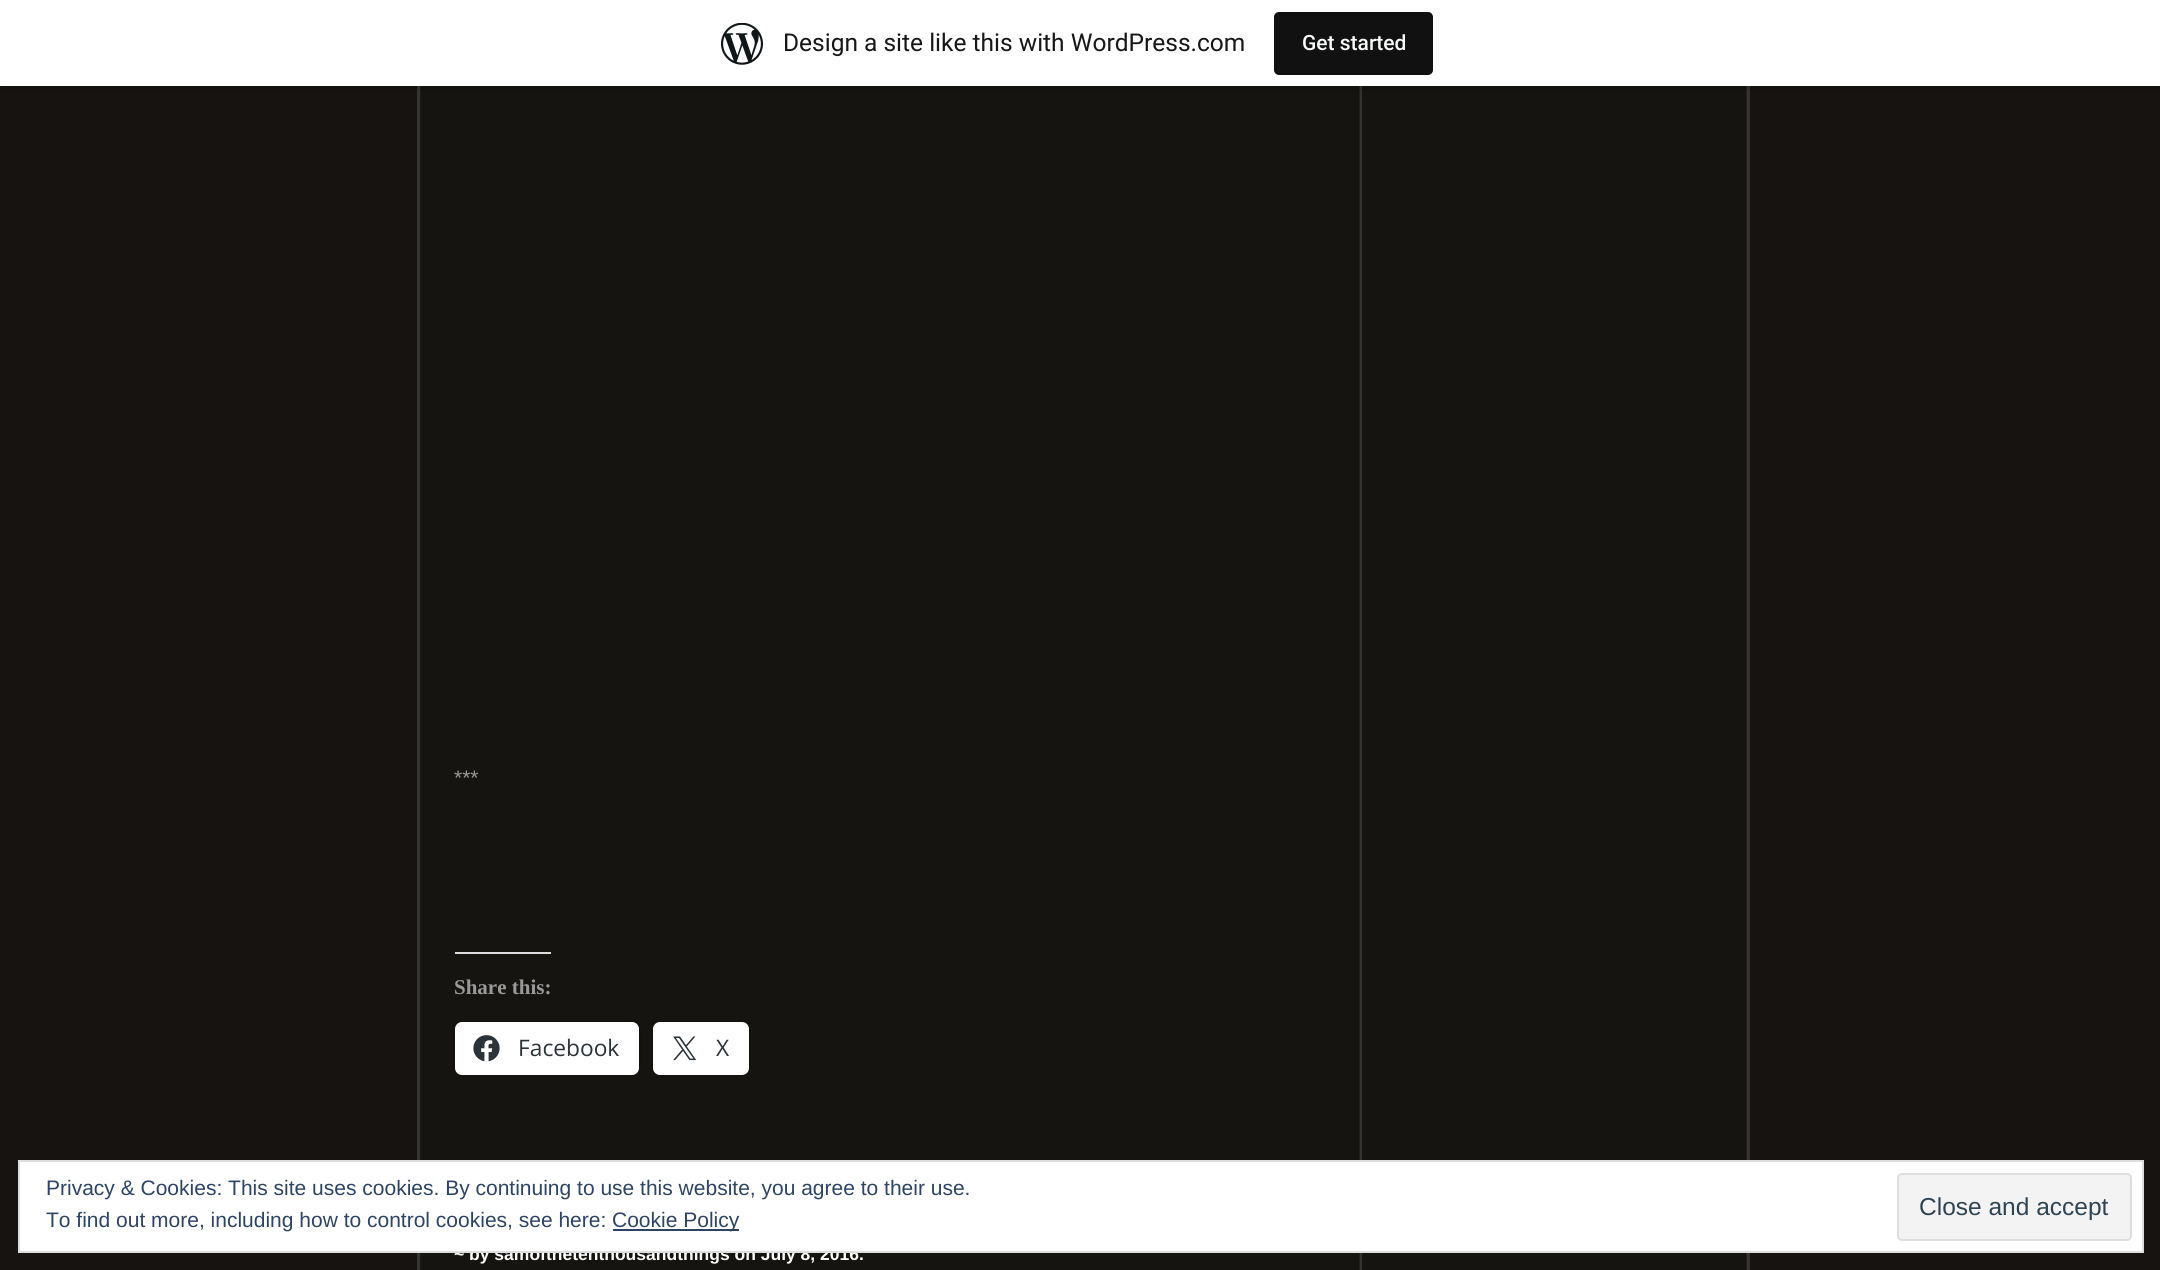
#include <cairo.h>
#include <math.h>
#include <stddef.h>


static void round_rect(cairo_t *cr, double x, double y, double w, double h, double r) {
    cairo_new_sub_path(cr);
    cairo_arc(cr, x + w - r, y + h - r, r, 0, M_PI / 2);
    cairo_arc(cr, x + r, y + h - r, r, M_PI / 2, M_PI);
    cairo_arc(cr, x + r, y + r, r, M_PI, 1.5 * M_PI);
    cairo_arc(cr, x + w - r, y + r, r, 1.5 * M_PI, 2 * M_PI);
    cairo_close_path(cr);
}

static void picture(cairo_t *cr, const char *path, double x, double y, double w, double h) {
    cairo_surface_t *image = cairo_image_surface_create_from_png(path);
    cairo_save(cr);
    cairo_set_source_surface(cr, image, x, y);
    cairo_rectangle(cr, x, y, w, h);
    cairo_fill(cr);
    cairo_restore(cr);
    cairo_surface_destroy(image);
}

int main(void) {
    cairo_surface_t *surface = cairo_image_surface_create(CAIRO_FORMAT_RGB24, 2160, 1270);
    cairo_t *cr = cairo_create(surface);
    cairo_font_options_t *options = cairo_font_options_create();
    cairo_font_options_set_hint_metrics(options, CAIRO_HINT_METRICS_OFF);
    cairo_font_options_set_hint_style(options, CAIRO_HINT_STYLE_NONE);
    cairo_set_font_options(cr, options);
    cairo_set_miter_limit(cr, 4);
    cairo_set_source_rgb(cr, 0.086, 0.078, 0.063);
    cairo_paint(cr);
    picture(cr, "img2.png", 420, 86, 1328, 1184);
    cairo_set_source_rgb(cr, 0.212, 0.204, 0.188);
    cairo_rectangle(cr, 1748, 86, 2, 1184);
    cairo_fill(cr);
    cairo_rectangle(cr, 417, 86, 3, 1184);
    cairo_fill(cr);
    cairo_rectangle(cr, 1361, 86, 1, 1184);
    cairo_fill(cr);
    cairo_set_source_rgba(cr, 0, 0, 0, 0.08);
    cairo_new_path(cr);
    cairo_move_to(cr, 2, 86);
    cairo_line_to(cr, 2, 91);
    cairo_line_to(cr, 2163, 91);
    cairo_line_to(cr, 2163, 5);
    cairo_line_to(cr, 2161, 5);
    cairo_line_to(cr, 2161, 86);
    cairo_close_path(cr);
    cairo_fill(cr);
    cairo_set_source_rgb(cr, 1, 1, 1);
    cairo_rectangle(cr, 0, 0, 2160, 86);
    cairo_fill(cr);
    picture(cr, "img1.png", 721, 23, 42, 42);
    cairo_select_font_face(cr, "Roboto", CAIRO_FONT_SLANT_NORMAL, CAIRO_FONT_WEIGHT_NORMAL);
    cairo_set_font_size(cr, 24.5);
    cairo_set_source_rgb(cr, 0.09, 0.09, 0.09);
    cairo_move_to(cr, 783, 51);
    cairo_show_text(cr, "Design a site like this with WordPress.com");
    cairo_set_source_rgb(cr, 0.067, 0.067, 0.067);
    round_rect(cr, 1274, 12, 159, 63, 5);
    cairo_fill(cr);
    cairo_select_font_face(cr, "Roboto Medium", CAIRO_FONT_SLANT_NORMAL, CAIRO_FONT_WEIGHT_NORMAL);
    cairo_set_font_size(cr, 21);
    cairo_set_source_rgb(cr, 0.965, 0.969, 0.969);
    cairo_move_to(cr, 1302, 50);
    cairo_show_text(cr, "Get started");
    cairo_select_font_face(cr, "Liberation Sans", CAIRO_FONT_SLANT_NORMAL, CAIRO_FONT_WEIGHT_NORMAL);
    cairo_set_source_rgb(cr, 0.6, 0.6, 0.6);
    cairo_move_to(cr, 454, 785);
    cairo_show_text(cr, "***");
    cairo_set_source_rgb(cr, 0.863, 0.863, 0.871);
    cairo_rectangle(cr, 455, 952, 96, 2);
    cairo_fill(cr);
    cairo_select_font_face(cr, "Liberation Serif", CAIRO_FONT_SLANT_NORMAL, CAIRO_FONT_WEIGHT_BOLD);
    cairo_set_source_rgb(cr, 0.6, 0.6, 0.6);
    cairo_move_to(cr, 454, 994);
    cairo_show_text(cr, "Share this:");
    round_rect(cr, 454, 1021, 186, 54, 8);
    cairo_set_source_rgb(cr, 0.075, 0.071, 0.055);
    cairo_stroke(cr);
    cairo_set_source_rgb(cr, 1, 1, 1);
    round_rect(cr, 455, 1022, 184, 53, 7);
    cairo_fill(cr);
    picture(cr, "img3.png", 473, 1035, 27, 27);
    cairo_select_font_face(cr, "Open Sans", CAIRO_FONT_SLANT_NORMAL, CAIRO_FONT_WEIGHT_NORMAL);
    cairo_set_font_size(cr, 22.75);
    cairo_set_source_rgb(cr, 0.173, 0.2, 0.22);
    cairo_move_to(cr, 518, 1056);
    cairo_show_text(cr, "Facebook");
    round_rect(cr, 652, 1021, 98, 54, 8);
    cairo_set_source_rgb(cr, 0.075, 0.071, 0.055);
    cairo_stroke(cr);
    cairo_set_source_rgb(cr, 1, 1, 1);
    round_rect(cr, 653, 1022, 96, 53, 7);
    cairo_fill(cr);
    picture(cr, "img4.png", 673, 1036, 23, 25);
    cairo_set_source_rgb(cr, 0.173, 0.2, 0.22);
    cairo_move_to(cr, 716, 1056);
    cairo_show_text(cr, "X");
    cairo_select_font_face(cr, "Liberation Sans", CAIRO_FONT_SLANT_NORMAL, CAIRO_FONT_WEIGHT_BOLD);
    cairo_set_font_size(cr, 17.5);
    cairo_set_source_rgb(cr, 1, 1, 1);
    cairo_move_to(cr, 454, 1260);
    cairo_show_text(cr, "~ by samofthetenthousandthings on July 8, 2016.");
    cairo_rectangle(cr, 19, 1161, 2124, 91);
    cairo_fill_preserve(cr);
    cairo_set_source_rgb(cr, 0.871, 0.871, 0.871);
    cairo_stroke(cr);
    cairo_select_font_face(cr, "Liberation Sans", CAIRO_FONT_SLANT_NORMAL, CAIRO_FONT_WEIGHT_NORMAL);
    cairo_set_font_size(cr, 21);
    cairo_set_source_rgb(cr, 0.18, 0.267, 0.404);
    cairo_move_to(cr, 46, 1195);
    cairo_show_text(cr, "Privacy & Cookies: This site uses cookies. By continuing to use this website, you agree to their use.");
    cairo_move_to(cr, 46, 1227);
    cairo_show_text(cr, "To find out more, including how to control cookies, see here:");
    cairo_rectangle(cr, 613, 1229, 126, 2);
    cairo_fill(cr);
    cairo_move_to(cr, 612, 1227);
    cairo_show_text(cr, "Cookie Policy");
    cairo_set_source_rgb(cr, 0.953, 0.953, 0.953);
    round_rect(cr, 1898, 1174, 233, 66, 4);
    cairo_fill_preserve(cr);
    cairo_set_source_rgb(cr, 0.871, 0.871, 0.871);
    cairo_stroke(cr);
    cairo_set_font_size(cr, 24.5);
    cairo_set_source_rgb(cr, 0.18, 0.267, 0.325);
    cairo_move_to(cr, 1919, 1215);
    cairo_show_text(cr, "Close and accept");
    cairo_surface_write_to_png(surface, "page.png");
    cairo_font_options_destroy(options);
    cairo_destroy(cr);
    cairo_surface_destroy(surface);
    return 0;
}
